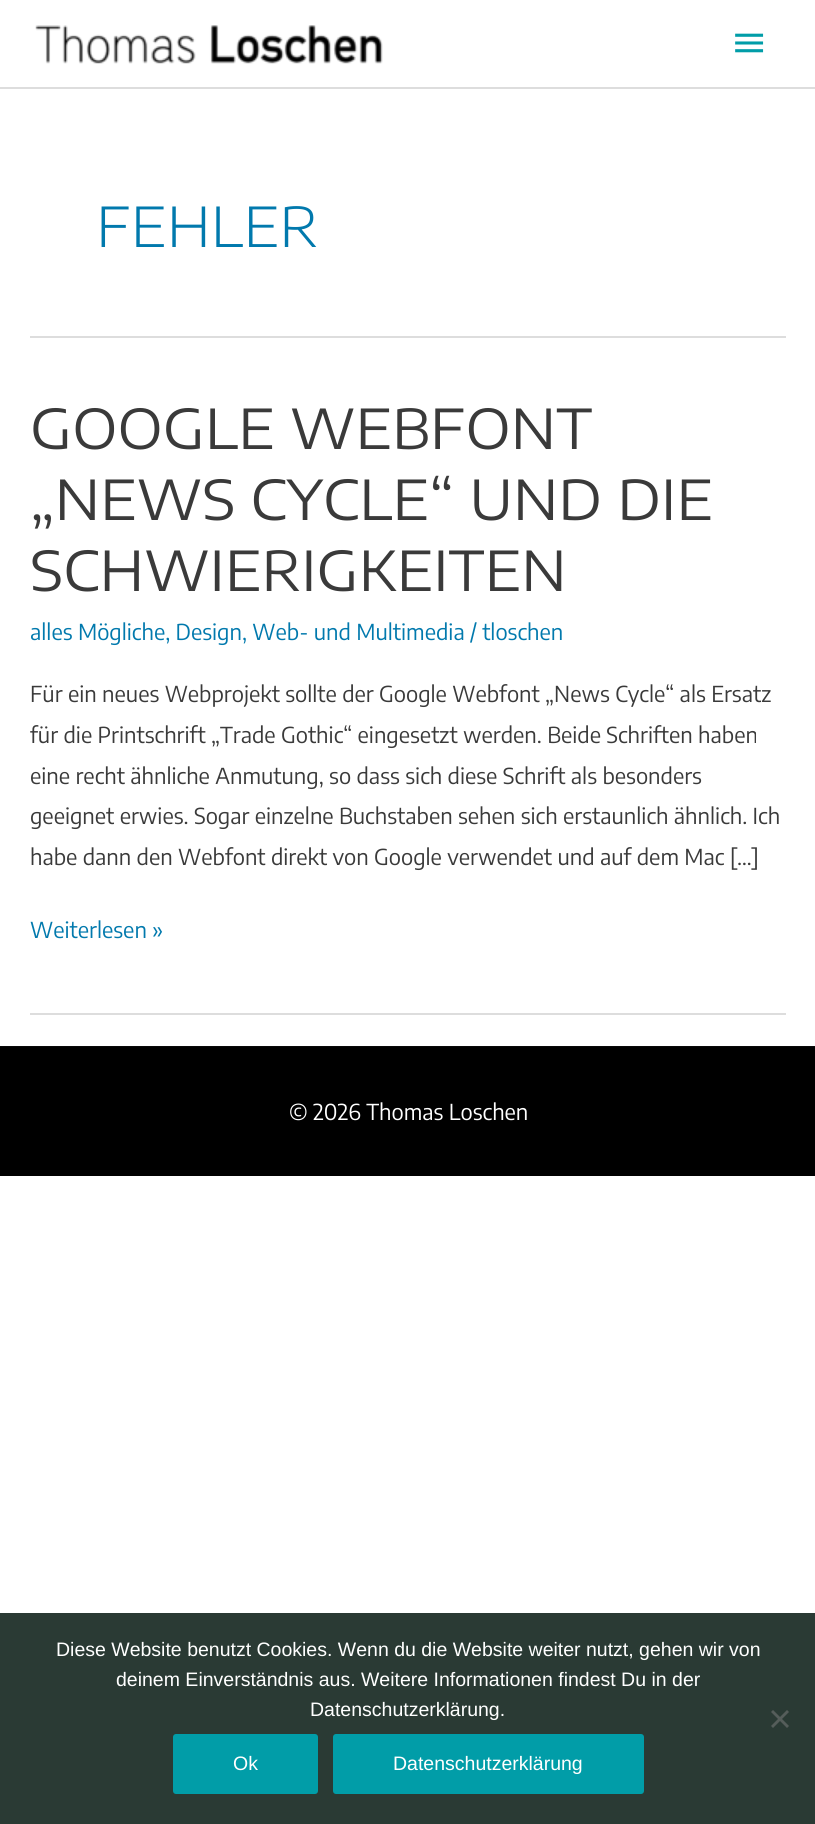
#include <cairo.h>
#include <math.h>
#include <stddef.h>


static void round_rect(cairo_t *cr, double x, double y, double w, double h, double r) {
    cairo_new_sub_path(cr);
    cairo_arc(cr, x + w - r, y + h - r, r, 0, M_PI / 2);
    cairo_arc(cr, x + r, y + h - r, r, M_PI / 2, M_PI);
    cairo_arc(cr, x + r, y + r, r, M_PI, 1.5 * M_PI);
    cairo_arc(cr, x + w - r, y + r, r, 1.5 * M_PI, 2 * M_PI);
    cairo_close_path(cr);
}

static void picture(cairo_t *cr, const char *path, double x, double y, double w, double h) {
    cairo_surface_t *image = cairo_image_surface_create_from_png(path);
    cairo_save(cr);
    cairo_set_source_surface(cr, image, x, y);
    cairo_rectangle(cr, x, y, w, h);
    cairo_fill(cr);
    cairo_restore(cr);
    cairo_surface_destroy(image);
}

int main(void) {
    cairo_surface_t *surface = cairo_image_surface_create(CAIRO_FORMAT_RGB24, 815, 1824);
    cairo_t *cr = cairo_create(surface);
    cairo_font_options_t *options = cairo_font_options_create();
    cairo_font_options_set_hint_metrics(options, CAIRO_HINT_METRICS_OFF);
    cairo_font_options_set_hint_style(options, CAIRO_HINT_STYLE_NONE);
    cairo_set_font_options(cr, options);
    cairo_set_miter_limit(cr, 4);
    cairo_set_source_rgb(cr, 1, 1, 1);
    cairo_paint(cr);
    cairo_set_source_rgb(cr, 0.867, 0.867, 0.867);
    cairo_rectangle(cr, 0, 87, 815, 2);
    cairo_fill(cr);
    picture(cr, "img1.png", 35, 25, 348, 39);
    picture(cr, "img2.png", 735, 33, 29, 20);
    cairo_rectangle(cr, 30, 336, 756, 2);
    cairo_fill(cr);
    cairo_select_font_face(cr, "Encode Sans Expanded Light", CAIRO_FONT_SLANT_NORMAL, CAIRO_FONT_WEIGHT_NORMAL);
    cairo_set_font_size(cr, 54.75);
    cairo_set_source_rgb(cr, 0.004, 0.475, 0.678);
    cairo_move_to(cr, 96, 247);
    cairo_show_text(cr, "FEHLER");
    cairo_set_source_rgb(cr, 0.867, 0.867, 0.867);
    cairo_rectangle(cr, 30, 1013, 756, 2);
    cairo_fill(cr);
    cairo_select_font_face(cr, "Encode Sans Expanded", CAIRO_FONT_SLANT_NORMAL, CAIRO_FONT_WEIGHT_NORMAL);
    cairo_set_source_rgb(cr, 0.227, 0.227, 0.227);
    cairo_move_to(cr, 30, 449);
    cairo_show_text(cr, "GOOGLE WEBFONT");
    cairo_move_to(cr, 30, 520);
    cairo_show_text(cr, "„NEWS CYCLE“ UND DIE");
    cairo_move_to(cr, 30, 591);
    cairo_show_text(cr, "SCHWIERIGKEITEN");
    cairo_select_font_face(cr, "Encode Sans", CAIRO_FONT_SLANT_NORMAL, CAIRO_FONT_WEIGHT_NORMAL);
    cairo_set_font_size(cr, 21.9);
    cairo_set_source_rgb(cr, 0.004, 0.475, 0.678);
    cairo_move_to(cr, 30, 640);
    cairo_show_text(cr, "alles Mögliche, Design, Web- und Multimedia / tloschen");
    cairo_set_source_rgb(cr, 0.227, 0.227, 0.227);
    cairo_move_to(cr, 30, 702);
    cairo_show_text(cr, "Für ein neues Webprojekt sollte der Google Webfont „News Cycle“ als Ersatz");
    cairo_move_to(cr, 30, 743);
    cairo_show_text(cr, "für die Printschrift „Trade Gothic“ eingesetzt werden. Beide Schriften haben");
    cairo_move_to(cr, 30, 784);
    cairo_show_text(cr, "eine recht ähnliche Anmutung, so dass sich diese Schrift als besonders");
    cairo_move_to(cr, 30, 824);
    cairo_show_text(cr, "geeignet erwies. Sogar einzelne Buchstaben sehen sich erstaunlich ähnlich. Ich");
    cairo_move_to(cr, 30, 865);
    cairo_show_text(cr, "habe dann den Webfont direkt von Google verwendet und auf dem Mac […]");
    cairo_set_source_rgb(cr, 0.004, 0.475, 0.678);
    cairo_move_to(cr, 30, 938);
    cairo_show_text(cr, "Weiterlesen »");
    cairo_set_source_rgb(cr, 0.039, 0.039, 0.039);
    cairo_rectangle(cr, 0, 1046, 815, 1);
    cairo_fill(cr);
    cairo_set_source_rgb(cr, 0, 0, 0);
    cairo_rectangle(cr, 0, 1047, 815, 129);
    cairo_fill(cr);
    cairo_set_source_rgb(cr, 1, 1, 1);
    cairo_move_to(cr, 289, 1120);
    cairo_show_text(cr, "© 2026 Thomas Loschen");
    cairo_set_source_rgb(cr, 0.165, 0.227, 0.204);
    cairo_rectangle(cr, 0, 1613, 815, 211);
    cairo_fill(cr);
    cairo_select_font_face(cr, "Liberation Sans", CAIRO_FONT_SLANT_NORMAL, CAIRO_FONT_WEIGHT_NORMAL);
    cairo_set_font_size(cr, 19.5);
    cairo_set_source_rgb(cr, 1, 1, 1);
    cairo_move_to(cr, 56, 1656);
    cairo_show_text(cr, "Diese Website benutzt Cookies. Wenn du die Website weiter nutzt, gehen wir von");
    cairo_move_to(cr, 116, 1686);
    cairo_show_text(cr, "deinem Einverständnis aus. Weitere Informationen findest Du in der");
    cairo_move_to(cr, 310, 1716);
    cairo_show_text(cr, "Datenschutzerklärung.");
    cairo_set_source_rgb(cr, 0.333, 0.365, 0.353);
    cairo_new_path(cr);
    cairo_move_to(cr, 787, 1710);
    cairo_line_to(cr, 789, 1712);
    cairo_line_to(cr, 773, 1728);
    cairo_line_to(cr, 771, 1726);
    cairo_close_path(cr);
    cairo_fill(cr);
    cairo_new_path(cr);
    cairo_move_to(cr, 771, 1712);
    cairo_line_to(cr, 773, 1710);
    cairo_line_to(cr, 789, 1726);
    cairo_line_to(cr, 787, 1728);
    cairo_close_path(cr);
    cairo_fill(cr);
    cairo_set_source_rgb(cr, 0.004, 0.616, 0.659);
    round_rect(cr, 173, 1734, 145, 60, 3);
    cairo_fill(cr);
    cairo_set_source_rgb(cr, 1, 1, 1);
    cairo_move_to(cr, 233, 1770);
    cairo_show_text(cr, "Ok");
    cairo_set_source_rgb(cr, 0.004, 0.616, 0.659);
    round_rect(cr, 333, 1734, 311, 60, 3);
    cairo_fill(cr);
    cairo_set_source_rgb(cr, 1, 1, 1);
    cairo_move_to(cr, 393, 1770);
    cairo_show_text(cr, "Datenschutzerklärung");
    cairo_surface_write_to_png(surface, "page.png");
    cairo_font_options_destroy(options);
    cairo_destroy(cr);
    cairo_surface_destroy(surface);
    return 0;
}
